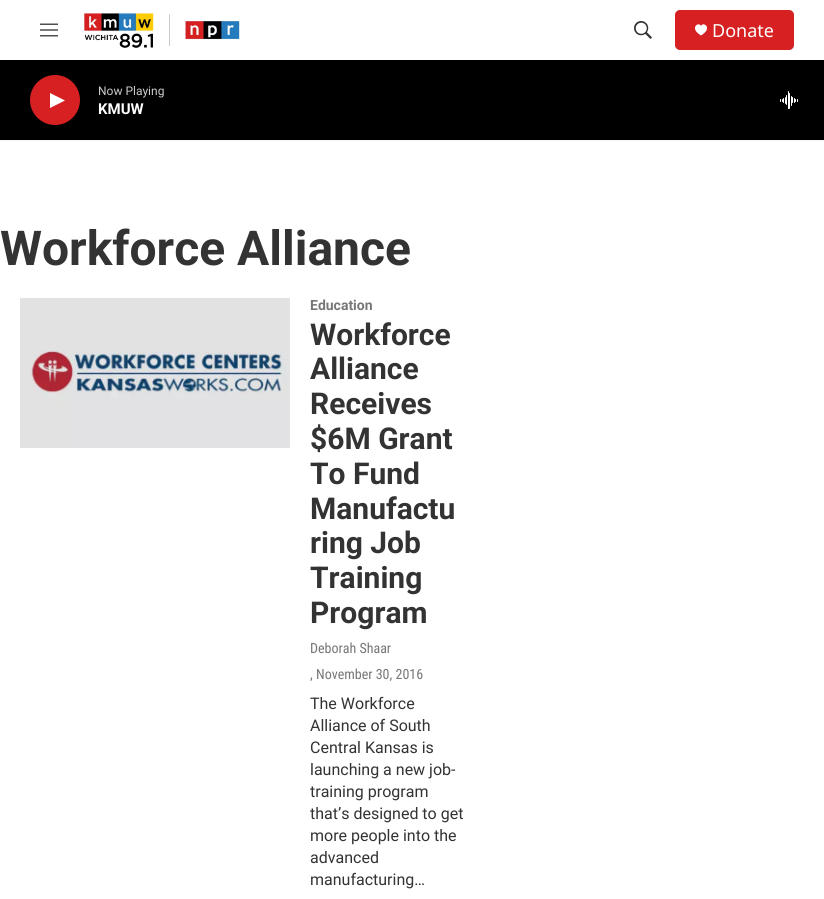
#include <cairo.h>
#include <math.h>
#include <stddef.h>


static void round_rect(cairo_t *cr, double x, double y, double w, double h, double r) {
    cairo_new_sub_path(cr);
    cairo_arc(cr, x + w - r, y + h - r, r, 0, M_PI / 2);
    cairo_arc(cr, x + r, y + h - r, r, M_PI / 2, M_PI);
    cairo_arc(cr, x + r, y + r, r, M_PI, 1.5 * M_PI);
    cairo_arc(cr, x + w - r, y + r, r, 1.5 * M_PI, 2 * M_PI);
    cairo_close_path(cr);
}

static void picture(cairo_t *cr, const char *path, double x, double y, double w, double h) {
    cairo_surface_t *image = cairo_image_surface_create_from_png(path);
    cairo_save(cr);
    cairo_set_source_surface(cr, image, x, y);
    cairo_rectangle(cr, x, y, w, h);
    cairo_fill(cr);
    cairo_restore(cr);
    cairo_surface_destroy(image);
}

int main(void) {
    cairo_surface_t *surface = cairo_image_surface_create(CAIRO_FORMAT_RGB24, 824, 899);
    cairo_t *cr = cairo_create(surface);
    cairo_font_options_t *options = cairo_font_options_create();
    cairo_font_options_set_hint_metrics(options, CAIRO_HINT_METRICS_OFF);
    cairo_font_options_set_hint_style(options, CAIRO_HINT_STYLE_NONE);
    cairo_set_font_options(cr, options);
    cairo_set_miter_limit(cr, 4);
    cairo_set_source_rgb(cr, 1, 1, 1);
    cairo_paint(cr);
    cairo_set_source_rgb(cr, 0.961, 0.961, 0.961);
    cairo_rectangle(cr, 0, 140, 824, 1);
    cairo_fill(cr);
    picture(cr, "img1.png", 40, 23, 18, 14);
    picture(cr, "img2.png", 84, 12, 156, 36);
    picture(cr, "img3.png", 634, 21, 18, 18);
    cairo_set_source_rgb(cr, 0.839, 0.125, 0.129);
    round_rect(cr, 675, 10, 119, 40, 5);
    cairo_fill(cr);
    cairo_set_source_rgb(cr, 1, 1, 1);
    cairo_new_path(cr);
    cairo_move_to(cr, 701, 26);
    cairo_curve_to(cr, 699, 21, 688.5, 28, 701, 35.5);
    cairo_curve_to(cr, 713.5, 28, 703, 21, 701, 26);
    cairo_close_path(cr);
    cairo_fill(cr);
    cairo_select_font_face(cr, "Noto Sans", CAIRO_FONT_SLANT_NORMAL, CAIRO_FONT_WEIGHT_NORMAL);
    cairo_set_font_size(cr, 18);
    cairo_move_to(cr, 712, 37);
    cairo_show_text(cr, "Donate");
    cairo_set_source_rgb(cr, 0, 0, 0);
    cairo_rectangle(cr, 0, 60, 824, 80);
    cairo_fill(cr);
    cairo_set_source_rgb(cr, 0.839, 0.125, 0.129);
    cairo_arc(cr, 55, 100, 25, 0, 2 * M_PI);
    cairo_fill(cr);
    cairo_set_source_rgb(cr, 1, 1, 1);
    cairo_new_path(cr);
    cairo_move_to(cr, 50, 93);
    cairo_line_to(cr, 65, 100.5);
    cairo_line_to(cr, 50, 108);
    cairo_close_path(cr);
    cairo_fill(cr);
    cairo_select_font_face(cr, "Roboto", CAIRO_FONT_SLANT_NORMAL, CAIRO_FONT_WEIGHT_NORMAL);
    cairo_set_font_size(cr, 12);
    cairo_set_source_rgb(cr, 0.8, 0.8, 0.8);
    cairo_move_to(cr, 98, 95);
    cairo_show_text(cr, "Now Playing");
    cairo_select_font_face(cr, "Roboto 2", CAIRO_FONT_SLANT_NORMAL, CAIRO_FONT_WEIGHT_BOLD);
    cairo_set_font_size(cr, 15);
    cairo_set_source_rgb(cr, 1, 1, 1);
    cairo_move_to(cr, 98, 114);
    cairo_show_text(cr, "KMUW");
    picture(cr, "img4.png", 780, 91, 18, 18);
    cairo_select_font_face(cr, "Roboto", CAIRO_FONT_SLANT_NORMAL, CAIRO_FONT_WEIGHT_BOLD);
    cairo_set_font_size(cr, 48);
    cairo_set_source_rgb(cr, 0.2, 0.2, 0.2);
    cairo_move_to(cr, 0, 265);
    cairo_show_text(cr, "Workforce Alliance");
    picture(cr, "img5.png", 20, 298, 270, 150);
    cairo_set_font_size(cr, 14);
    cairo_set_source_rgb(cr, 0.463, 0.463, 0.463);
    cairo_move_to(cr, 310, 310);
    cairo_show_text(cr, "Education");
    cairo_set_font_size(cr, 30);
    cairo_set_source_rgb(cr, 0.2, 0.2, 0.2);
    cairo_move_to(cr, 310, 345);
    cairo_show_text(cr, "Workforce");
    cairo_move_to(cr, 310, 379);
    cairo_show_text(cr, "Alliance");
    cairo_move_to(cr, 310, 414);
    cairo_show_text(cr, "Receives");
    cairo_move_to(cr, 310, 449);
    cairo_show_text(cr, "$6M Grant");
    cairo_move_to(cr, 310, 484);
    cairo_show_text(cr, "To Fund");
    cairo_move_to(cr, 310, 519);
    cairo_show_text(cr, "Manufactu");
    cairo_move_to(cr, 310, 553);
    cairo_show_text(cr, "ring Job");
    cairo_move_to(cr, 310, 588);
    cairo_show_text(cr, "Training");
    cairo_move_to(cr, 310, 623);
    cairo_show_text(cr, "Program");
    cairo_select_font_face(cr, "Roboto Condensed", CAIRO_FONT_SLANT_NORMAL, CAIRO_FONT_WEIGHT_NORMAL);
    cairo_set_font_size(cr, 14);
    cairo_set_source_rgb(cr, 0.463, 0.463, 0.463);
    cairo_move_to(cr, 310, 653);
    cairo_show_text(cr, "Deborah Shaar");
    cairo_move_to(cr, 310, 679);
    cairo_show_text(cr, ", November 30, 2016");
    cairo_select_font_face(cr, "Roboto", CAIRO_FONT_SLANT_NORMAL, CAIRO_FONT_WEIGHT_NORMAL);
    cairo_set_font_size(cr, 16);
    cairo_set_source_rgb(cr, 0.2, 0.2, 0.2);
    cairo_move_to(cr, 310, 709);
    cairo_show_text(cr, "The Workforce");
    cairo_move_to(cr, 310, 731);
    cairo_show_text(cr, "Alliance of South");
    cairo_move_to(cr, 310, 753);
    cairo_show_text(cr, "Central Kansas is");
    cairo_move_to(cr, 310, 775);
    cairo_show_text(cr, "launching a new job-");
    cairo_move_to(cr, 310, 797);
    cairo_show_text(cr, "training program");
    cairo_move_to(cr, 310, 819);
    cairo_show_text(cr, "that’s designed to get");
    cairo_move_to(cr, 310, 841);
    cairo_show_text(cr, "more people into the");
    cairo_move_to(cr, 310, 863);
    cairo_show_text(cr, "advanced");
    cairo_move_to(cr, 310, 885);
    cairo_show_text(cr, "manufacturing…");
    cairo_surface_write_to_png(surface, "page.png");
    cairo_font_options_destroy(options);
    cairo_destroy(cr);
    cairo_surface_destroy(surface);
    return 0;
}
